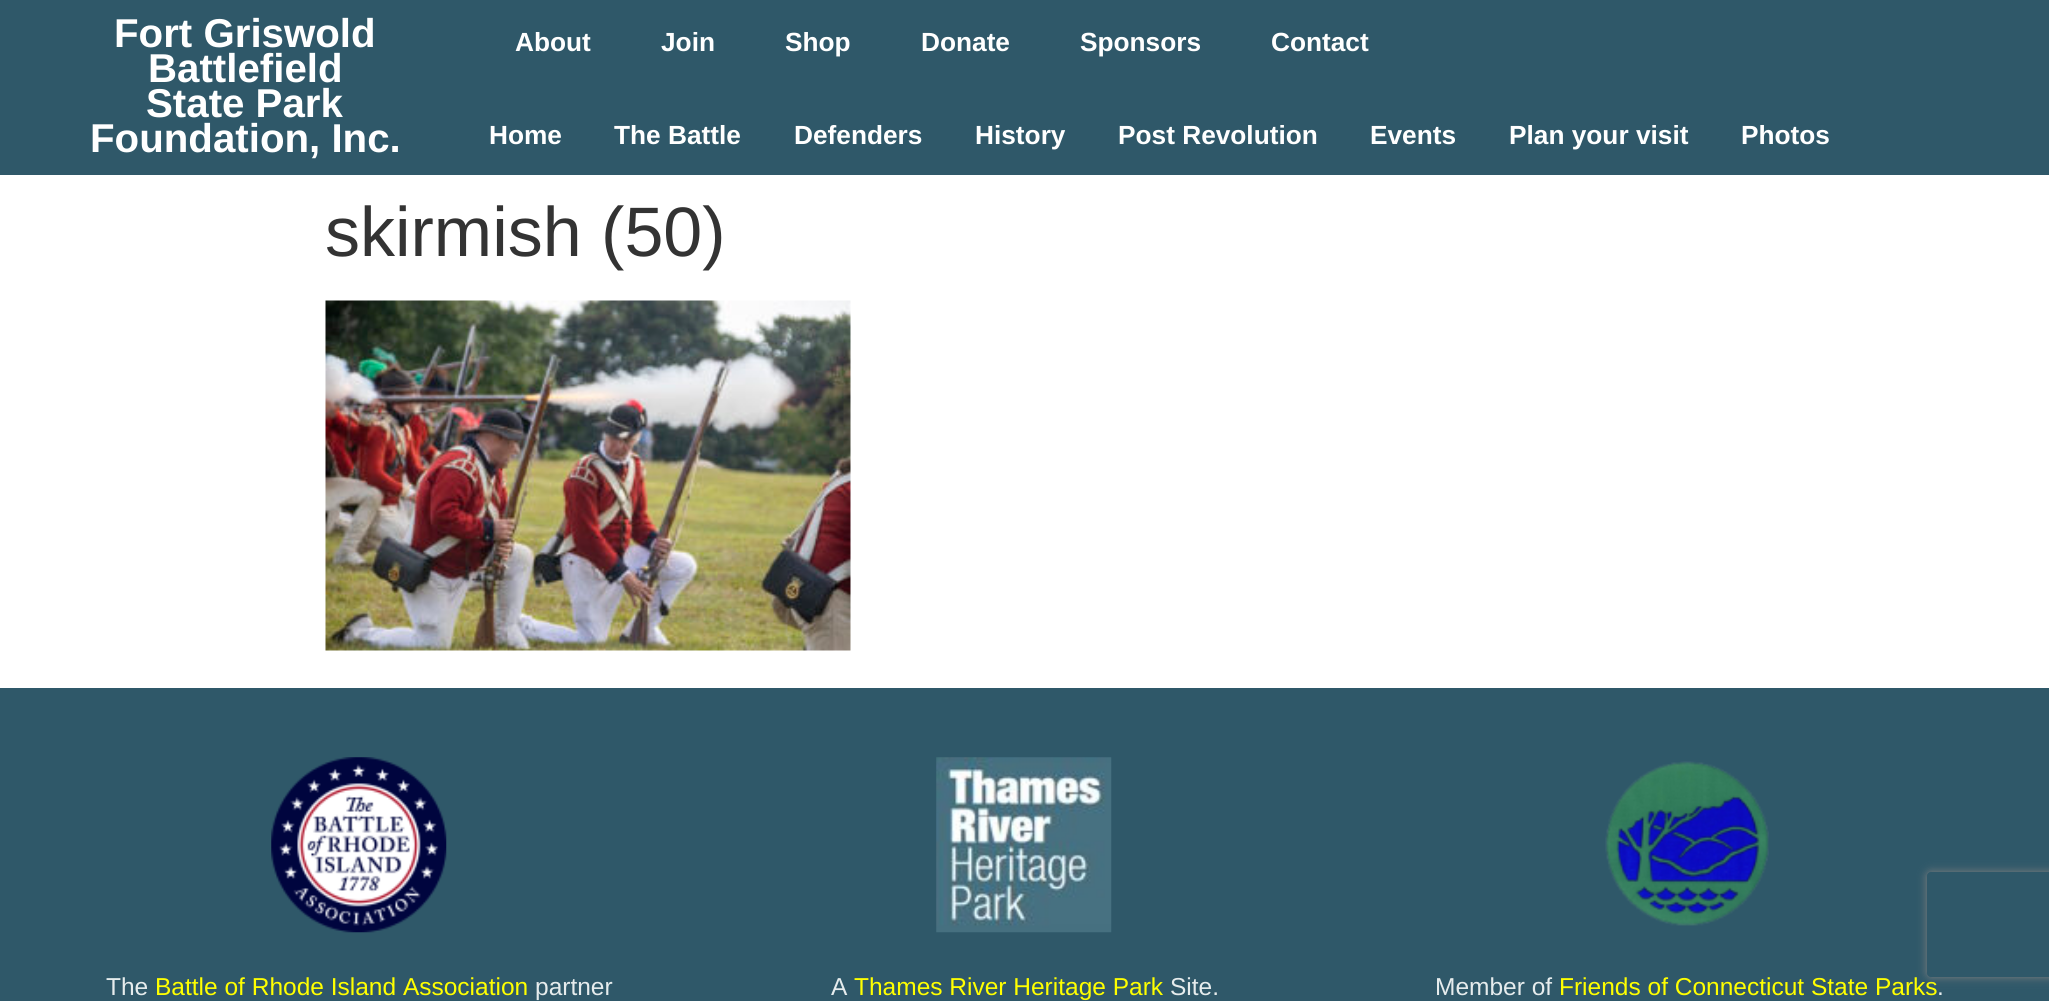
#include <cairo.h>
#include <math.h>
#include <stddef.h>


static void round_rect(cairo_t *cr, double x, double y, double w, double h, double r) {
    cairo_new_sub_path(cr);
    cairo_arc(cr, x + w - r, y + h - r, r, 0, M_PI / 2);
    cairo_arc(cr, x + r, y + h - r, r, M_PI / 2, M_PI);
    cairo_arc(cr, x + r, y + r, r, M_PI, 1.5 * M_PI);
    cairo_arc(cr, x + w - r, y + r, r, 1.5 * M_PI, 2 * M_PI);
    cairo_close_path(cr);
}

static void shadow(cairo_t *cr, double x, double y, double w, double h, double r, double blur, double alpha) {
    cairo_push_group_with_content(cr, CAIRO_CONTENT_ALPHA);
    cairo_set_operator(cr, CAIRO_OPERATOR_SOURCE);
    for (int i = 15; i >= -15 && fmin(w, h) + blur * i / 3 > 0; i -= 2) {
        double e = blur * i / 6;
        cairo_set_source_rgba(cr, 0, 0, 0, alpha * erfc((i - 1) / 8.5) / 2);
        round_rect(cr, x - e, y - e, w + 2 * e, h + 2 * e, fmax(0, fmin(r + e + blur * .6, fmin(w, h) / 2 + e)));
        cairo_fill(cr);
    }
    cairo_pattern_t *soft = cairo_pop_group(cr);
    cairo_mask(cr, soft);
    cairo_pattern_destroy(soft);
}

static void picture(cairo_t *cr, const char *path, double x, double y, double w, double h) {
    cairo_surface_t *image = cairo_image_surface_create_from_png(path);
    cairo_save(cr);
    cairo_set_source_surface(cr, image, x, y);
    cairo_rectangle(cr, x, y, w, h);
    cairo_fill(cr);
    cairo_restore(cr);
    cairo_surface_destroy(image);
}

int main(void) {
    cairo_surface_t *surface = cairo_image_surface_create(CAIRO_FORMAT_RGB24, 2049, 1001);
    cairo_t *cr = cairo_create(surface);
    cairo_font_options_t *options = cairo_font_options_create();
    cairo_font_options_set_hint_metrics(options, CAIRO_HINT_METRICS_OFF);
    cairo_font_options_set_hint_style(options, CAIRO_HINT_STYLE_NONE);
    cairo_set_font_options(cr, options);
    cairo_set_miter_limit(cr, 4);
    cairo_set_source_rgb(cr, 1, 1, 1);
    cairo_paint(cr);
    cairo_set_source_rgb(cr, 0.184, 0.345, 0.412);
    cairo_rectangle(cr, 0, 0, 2049, 175);
    cairo_fill(cr);
    cairo_select_font_face(cr, "Liberation Sans", CAIRO_FONT_SLANT_NORMAL, CAIRO_FONT_WEIGHT_BOLD);
    cairo_set_font_size(cr, 40.25);
    cairo_set_source_rgb(cr, 1, 1, 1);
    cairo_move_to(cr, 114, 47);
    cairo_show_text(cr, "Fort Griswold");
    cairo_move_to(cr, 148, 82);
    cairo_show_text(cr, "Battlefield");
    cairo_move_to(cr, 146, 117);
    cairo_show_text(cr, "State Park");
    cairo_move_to(cr, 90, 152);
    cairo_show_text(cr, "Foundation, Inc.");
    cairo_set_font_size(cr, 26.25);
    cairo_move_to(cr, 515, 51);
    cairo_show_text(cr, "About");
    cairo_move_to(cr, 661, 51);
    cairo_show_text(cr, "Join");
    cairo_move_to(cr, 785, 51);
    cairo_show_text(cr, "Shop");
    cairo_move_to(cr, 921, 51);
    cairo_show_text(cr, "Donate");
    cairo_move_to(cr, 1080, 51);
    cairo_show_text(cr, "Sponsors");
    cairo_move_to(cr, 1271, 51);
    cairo_show_text(cr, "Contact");
    cairo_move_to(cr, 489, 144);
    cairo_show_text(cr, "Home");
    cairo_move_to(cr, 614, 144);
    cairo_show_text(cr, "The Battle");
    cairo_move_to(cr, 794, 144);
    cairo_show_text(cr, "Defenders");
    cairo_move_to(cr, 975, 144);
    cairo_show_text(cr, "History");
    cairo_move_to(cr, 1118, 144);
    cairo_show_text(cr, "Post Revolution");
    cairo_move_to(cr, 1370, 144);
    cairo_show_text(cr, "Events");
    cairo_move_to(cr, 1509, 144);
    cairo_show_text(cr, "Plan your visit");
    cairo_move_to(cr, 1741, 144);
    cairo_show_text(cr, "Photos");
    cairo_select_font_face(cr, "Liberation Sans", CAIRO_FONT_SLANT_NORMAL, CAIRO_FONT_WEIGHT_NORMAL);
    cairo_set_font_size(cr, 70);
    cairo_set_source_rgb(cr, 0.2, 0.2, 0.2);
    cairo_move_to(cr, 325, 256);
    cairo_show_text(cr, "skirmish (50)");
    picture(cr, "img1.png", 325, 300, 526, 351);
    cairo_set_source_rgb(cr, 0.184, 0.345, 0.412);
    cairo_rectangle(cr, 0, 688, 2049, 313);
    cairo_fill(cr);
    picture(cr, "img2.png", 271, 757, 176, 176);
    cairo_set_font_size(cr, 24.5);
    cairo_set_source_rgb(cr, 0.902, 0.922, 0.929);
    cairo_move_to(cr, 106, 995);
    cairo_show_text(cr, "The");
    cairo_set_source_rgb(cr, 1, 1, 0);
    cairo_move_to(cr, 155, 995);
    cairo_show_text(cr, "Battle of Rhode Island Association");
    cairo_set_source_rgb(cr, 0.902, 0.922, 0.929);
    cairo_move_to(cr, 535, 995);
    cairo_show_text(cr, "partner");
    picture(cr, "img3.png", 936, 757, 176, 176);
    cairo_move_to(cr, 831, 995);
    cairo_show_text(cr, "A");
    cairo_set_source_rgb(cr, 1, 1, 0);
    cairo_move_to(cr, 854, 995);
    cairo_show_text(cr, "Thames River Heritage Park");
    cairo_set_source_rgb(cr, 0.902, 0.922, 0.929);
    cairo_move_to(cr, 1170, 995);
    cairo_show_text(cr, "Site.");
    picture(cr, "img4.png", 1605, 761, 164, 165);
    cairo_move_to(cr, 1435, 995);
    cairo_show_text(cr, "Member of");
    cairo_set_source_rgb(cr, 1, 1, 0);
    cairo_move_to(cr, 1559, 995);
    cairo_show_text(cr, "Friends of Connecticut State Parks");
    cairo_set_source_rgb(cr, 0.902, 0.922, 0.929);
    cairo_move_to(cr, 1937, 995);
    cairo_show_text(cr, ".");
    cairo_save(cr);
    cairo_set_fill_rule(cr, CAIRO_FILL_RULE_EVEN_ODD);
    cairo_new_path(cr);
    cairo_move_to(cr, 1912, 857);
    cairo_line_to(cr, 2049, 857);
    cairo_line_to(cr, 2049, 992);
    cairo_line_to(cr, 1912, 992);
    cairo_close_path(cr);
    cairo_move_to(cr, 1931, 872);
    cairo_line_to(cr, 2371, 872);
    cairo_curve_to(cr, 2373, 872, 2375, 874, 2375, 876);
    cairo_line_to(cr, 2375, 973);
    cairo_curve_to(cr, 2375, 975, 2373, 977, 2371, 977);
    cairo_line_to(cr, 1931, 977);
    cairo_curve_to(cr, 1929, 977, 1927, 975, 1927, 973);
    cairo_line_to(cr, 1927, 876);
    cairo_curve_to(cr, 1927, 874, 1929, 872, 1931, 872);
    cairo_close_path(cr);
    cairo_clip(cr);
    cairo_set_source_rgb(cr, 0.502, 0.502, 0.502);
    shadow(cr, 1927, 872, 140, 105, 4, 4.5, 1);
    cairo_restore(cr);
    cairo_surface_write_to_png(surface, "page.png");
    cairo_font_options_destroy(options);
    cairo_destroy(cr);
    cairo_surface_destroy(surface);
    return 0;
}
